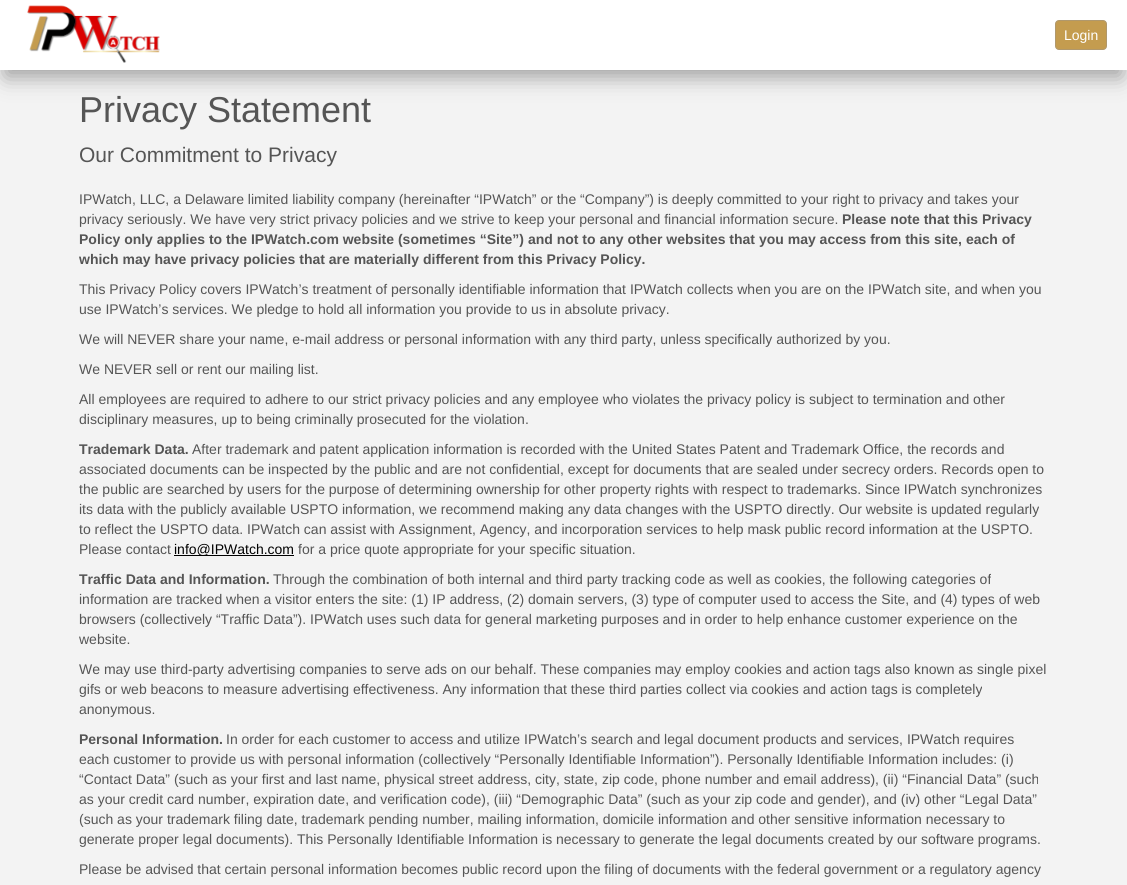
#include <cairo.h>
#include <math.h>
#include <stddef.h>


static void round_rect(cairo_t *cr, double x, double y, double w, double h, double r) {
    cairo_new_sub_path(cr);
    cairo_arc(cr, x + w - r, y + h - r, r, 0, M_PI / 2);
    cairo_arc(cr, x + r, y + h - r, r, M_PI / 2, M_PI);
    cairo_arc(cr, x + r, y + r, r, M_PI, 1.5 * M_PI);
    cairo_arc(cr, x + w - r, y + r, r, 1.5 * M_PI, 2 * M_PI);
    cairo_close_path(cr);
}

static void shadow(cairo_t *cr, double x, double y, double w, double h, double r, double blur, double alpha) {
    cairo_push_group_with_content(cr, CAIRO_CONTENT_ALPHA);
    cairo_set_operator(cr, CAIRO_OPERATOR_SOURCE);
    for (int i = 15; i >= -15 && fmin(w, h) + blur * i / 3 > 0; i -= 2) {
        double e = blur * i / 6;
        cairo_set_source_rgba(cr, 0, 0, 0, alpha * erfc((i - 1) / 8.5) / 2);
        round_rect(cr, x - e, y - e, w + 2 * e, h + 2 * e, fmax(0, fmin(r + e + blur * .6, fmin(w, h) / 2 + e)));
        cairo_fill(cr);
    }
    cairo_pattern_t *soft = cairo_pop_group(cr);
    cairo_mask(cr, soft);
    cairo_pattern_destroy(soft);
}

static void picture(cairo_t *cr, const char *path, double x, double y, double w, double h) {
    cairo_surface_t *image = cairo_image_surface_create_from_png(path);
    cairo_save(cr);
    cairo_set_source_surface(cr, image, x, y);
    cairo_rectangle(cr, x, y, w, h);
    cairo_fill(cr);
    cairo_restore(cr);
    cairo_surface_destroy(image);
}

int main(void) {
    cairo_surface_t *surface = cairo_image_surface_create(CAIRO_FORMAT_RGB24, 1127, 885);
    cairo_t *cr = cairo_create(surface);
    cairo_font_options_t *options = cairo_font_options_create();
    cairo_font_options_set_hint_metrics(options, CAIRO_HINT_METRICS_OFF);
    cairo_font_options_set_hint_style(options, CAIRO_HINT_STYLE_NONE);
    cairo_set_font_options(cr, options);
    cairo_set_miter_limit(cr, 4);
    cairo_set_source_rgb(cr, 0.953, 0.953, 0.953);
    cairo_paint(cr);
    cairo_set_source_rgb(cr, 0.6, 0.6, 0.6);
    shadow(cr, 6, 18, 1115, 58, 0, 11, 1);
    cairo_set_source_rgb(cr, 1, 1, 1);
    cairo_rectangle(cr, 0, 0, 1127, 70);
    cairo_fill(cr);
    picture(cr, "img1.png", 27, 5, 133, 58);
    cairo_set_source_rgb(cr, 0.769, 0.612, 0.31);
    round_rect(cr, 1055.5, 20.5, 51, 29, 3.5);
    cairo_fill_preserve(cr);
    cairo_set_source_rgb(cr, 0.69, 0.596, 0.424);
    cairo_set_line_width(cr, 1);
    cairo_stroke(cr);
    cairo_select_font_face(cr, "Liberation Sans", CAIRO_FONT_SLANT_NORMAL, CAIRO_FONT_WEIGHT_NORMAL);
    cairo_set_font_size(cr, 14);
    cairo_set_source_rgb(cr, 1, 1, 1);
    cairo_move_to(cr, 1064, 40);
    cairo_show_text(cr, "Login");
    cairo_set_font_size(cr, 36);
    cairo_set_source_rgb(cr, 0.333, 0.333, 0.333);
    cairo_move_to(cr, 79, 122);
    cairo_show_text(cr, "Privacy Statement");
    cairo_set_font_size(cr, 21);
    cairo_move_to(cr, 79, 162);
    cairo_show_text(cr, "Our Commitment to Privacy");
    cairo_set_font_size(cr, 14);
    cairo_move_to(cr, 79, 204);
    cairo_show_text(cr, "IPWatch, LLC, a Delaware limited liability company (hereinafter “IPWatch” or the “Company”) is deeply committed to your right to privacy and takes your");
    cairo_move_to(cr, 79, 224);
    cairo_show_text(cr, "privacy seriously. We have very strict privacy policies and we strive to keep your personal and financial information secure.");
    cairo_select_font_face(cr, "Liberation Sans", CAIRO_FONT_SLANT_NORMAL, CAIRO_FONT_WEIGHT_BOLD);
    cairo_move_to(cr, 842, 224);
    cairo_show_text(cr, "Please note that this Privacy");
    cairo_move_to(cr, 79, 244);
    cairo_show_text(cr, "Policy only applies to the IPWatch.com website (sometimes “Site”) and not to any other websites that you may access from this site, each of");
    cairo_move_to(cr, 79, 264);
    cairo_show_text(cr, "which may have privacy policies that are materially different from this Privacy Policy.");
    cairo_select_font_face(cr, "Liberation Sans", CAIRO_FONT_SLANT_NORMAL, CAIRO_FONT_WEIGHT_NORMAL);
    cairo_move_to(cr, 79, 294);
    cairo_show_text(cr, "This Privacy Policy covers IPWatch’s treatment of personally identifiable information that IPWatch collects when you are on the IPWatch site, and when you");
    cairo_move_to(cr, 79, 314);
    cairo_show_text(cr, "use IPWatch’s services. We pledge to hold all information you provide to us in absolute privacy.");
    cairo_move_to(cr, 79, 344);
    cairo_show_text(cr, "We will NEVER share your name, e-mail address or personal information with any third party, unless specifically authorized by you.");
    cairo_move_to(cr, 79, 374);
    cairo_show_text(cr, "We NEVER sell or rent our mailing list.");
    cairo_move_to(cr, 79, 404);
    cairo_show_text(cr, "All employees are required to adhere to our strict privacy policies and any employee who violates the privacy policy is subject to termination and other");
    cairo_move_to(cr, 79, 424);
    cairo_show_text(cr, "disciplinary measures, up to being criminally prosecuted for the violation.");
    cairo_select_font_face(cr, "Liberation Sans", CAIRO_FONT_SLANT_NORMAL, CAIRO_FONT_WEIGHT_BOLD);
    cairo_move_to(cr, 79, 454);
    cairo_show_text(cr, "Trademark Data.");
    cairo_select_font_face(cr, "Liberation Sans", CAIRO_FONT_SLANT_NORMAL, CAIRO_FONT_WEIGHT_NORMAL);
    cairo_move_to(cr, 192, 454);
    cairo_show_text(cr, "After trademark and patent application information is recorded with the United States Patent and Trademark Office, the records and");
    cairo_move_to(cr, 79, 474);
    cairo_show_text(cr, "associated documents can be inspected by the public and are not confidential, except for documents that are sealed under secrecy orders. Records open to");
    cairo_move_to(cr, 79, 494);
    cairo_show_text(cr, "the public are searched by users for the purpose of determining ownership for other property rights with respect to trademarks. Since IPWatch synchronizes");
    cairo_move_to(cr, 79, 514);
    cairo_show_text(cr, "its data with the publicly available USPTO information, we recommend making any data changes with the USPTO directly. Our website is updated regularly");
    cairo_move_to(cr, 79, 534);
    cairo_show_text(cr, "to reflect the USPTO data. IPWatch can assist with Assignment, Agency, and incorporation services to help mask public record information at the USPTO.");
    cairo_move_to(cr, 79, 554);
    cairo_show_text(cr, "Please contact");
    cairo_set_source_rgb(cr, 0, 0, 0);
    cairo_rectangle(cr, 174, 555, 120, 1);
    cairo_fill(cr);
    cairo_move_to(cr, 174, 554);
    cairo_show_text(cr, "info@IPWatch.com");
    cairo_set_source_rgb(cr, 0.333, 0.333, 0.333);
    cairo_move_to(cr, 298, 554);
    cairo_show_text(cr, "for a price quote appropriate for your specific situation.");
    cairo_select_font_face(cr, "Liberation Sans", CAIRO_FONT_SLANT_NORMAL, CAIRO_FONT_WEIGHT_BOLD);
    cairo_move_to(cr, 79, 584);
    cairo_show_text(cr, "Traffic Data and Information.");
    cairo_select_font_face(cr, "Liberation Sans", CAIRO_FONT_SLANT_NORMAL, CAIRO_FONT_WEIGHT_NORMAL);
    cairo_move_to(cr, 273, 584);
    cairo_show_text(cr, "Through the combination of both internal and third party tracking code as well as cookies, the following categories of");
    cairo_move_to(cr, 79, 604);
    cairo_show_text(cr, "information are tracked when a visitor enters the site: (1) IP address, (2) domain servers, (3) type of computer used to access the Site, and (4) types of web");
    cairo_move_to(cr, 79, 624);
    cairo_show_text(cr, "browsers (collectively “Traffic Data”). IPWatch uses such data for general marketing purposes and in order to help enhance customer experience on the");
    cairo_move_to(cr, 79, 644);
    cairo_show_text(cr, "website.");
    cairo_move_to(cr, 79, 674);
    cairo_show_text(cr, "We may use third-party advertising companies to serve ads on our behalf. These companies may employ cookies and action tags also known as single pixel");
    cairo_move_to(cr, 79, 694);
    cairo_show_text(cr, "gifs or web beacons to measure advertising effectiveness. Any information that these third parties collect via cookies and action tags is completely");
    cairo_move_to(cr, 79, 714);
    cairo_show_text(cr, "anonymous.");
    cairo_select_font_face(cr, "Liberation Sans", CAIRO_FONT_SLANT_NORMAL, CAIRO_FONT_WEIGHT_BOLD);
    cairo_move_to(cr, 79, 744);
    cairo_show_text(cr, "Personal Information.");
    cairo_select_font_face(cr, "Liberation Sans", CAIRO_FONT_SLANT_NORMAL, CAIRO_FONT_WEIGHT_NORMAL);
    cairo_move_to(cr, 226, 744);
    cairo_show_text(cr, "In order for each customer to access and utilize IPWatch’s search and legal document products and services, IPWatch requires");
    cairo_move_to(cr, 79, 764);
    cairo_show_text(cr, "each customer to provide us with personal information (collectively “Personally Identifiable Information”). Personally Identifiable Information includes: (i)");
    cairo_move_to(cr, 79, 784);
    cairo_show_text(cr, "“Contact Data” (such as your first and last name, physical street address, city, state, zip code, phone number and email address), (ii) “Financial Data” (such");
    cairo_move_to(cr, 79, 804);
    cairo_show_text(cr, "as your credit card number, expiration date, and verification code), (iii) “Demographic Data” (such as your zip code and gender), and (iv) other “Legal Data”");
    cairo_move_to(cr, 79, 824);
    cairo_show_text(cr, "(such as your trademark filing date, trademark pending number, mailing information, domicile information and other sensitive information necessary to");
    cairo_move_to(cr, 79, 844);
    cairo_show_text(cr, "generate proper legal documents). This Personally Identifiable Information is necessary to generate the legal documents created by our software programs.");
    cairo_move_to(cr, 79, 874);
    cairo_show_text(cr, "Please be advised that certain personal information becomes public record upon the filing of documents with the federal government or a regulatory agency");
    cairo_surface_write_to_png(surface, "page.png");
    cairo_font_options_destroy(options);
    cairo_destroy(cr);
    cairo_surface_destroy(surface);
    return 0;
}
